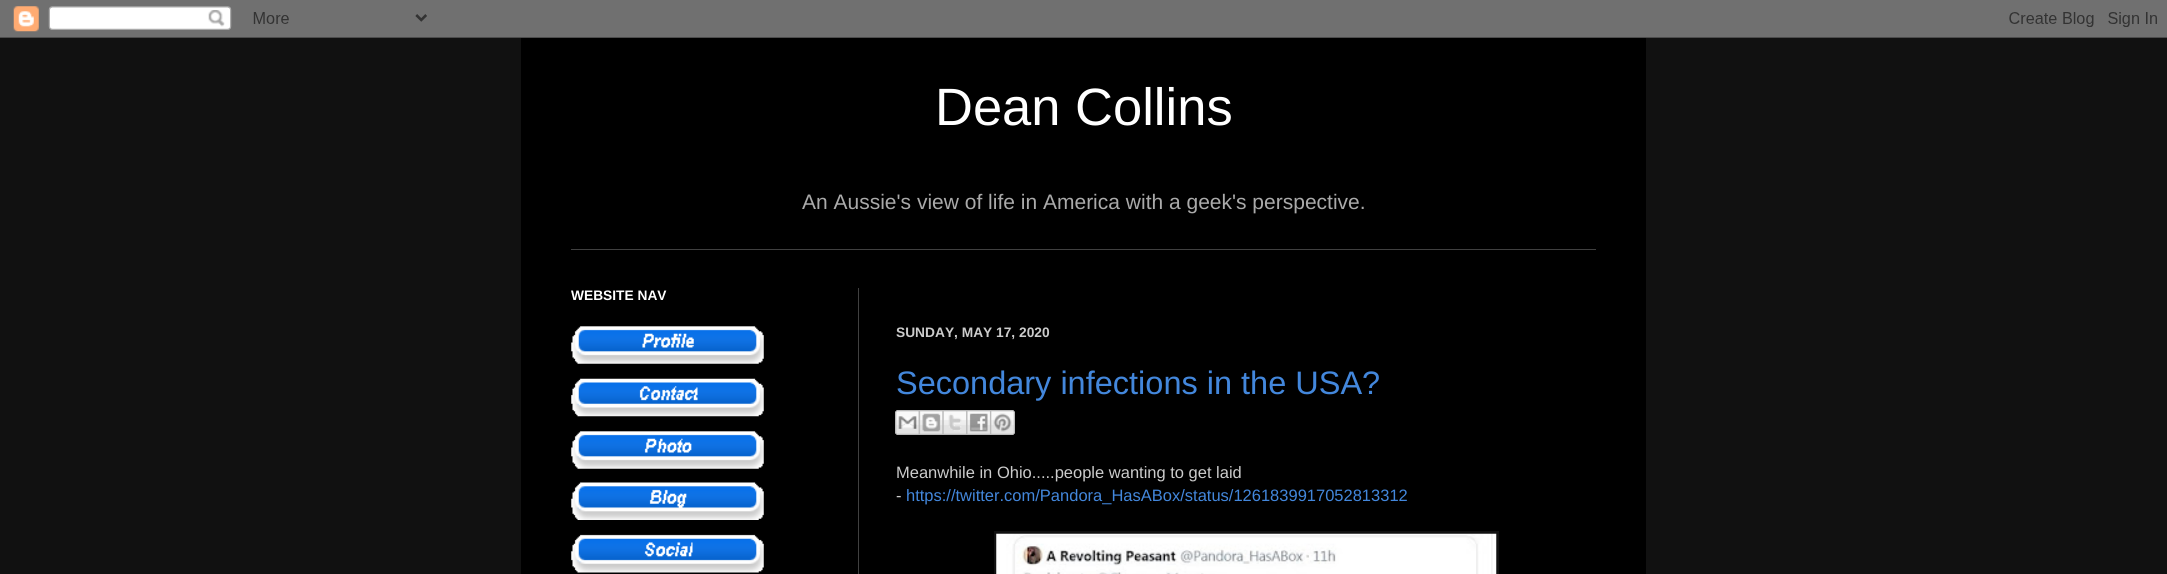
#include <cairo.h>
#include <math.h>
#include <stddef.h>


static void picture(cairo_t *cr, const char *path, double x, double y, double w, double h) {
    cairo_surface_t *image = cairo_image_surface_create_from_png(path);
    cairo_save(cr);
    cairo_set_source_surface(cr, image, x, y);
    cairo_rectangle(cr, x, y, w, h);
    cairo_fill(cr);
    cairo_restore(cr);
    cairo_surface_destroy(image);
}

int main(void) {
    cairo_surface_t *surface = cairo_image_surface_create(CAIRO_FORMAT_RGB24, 2167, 574);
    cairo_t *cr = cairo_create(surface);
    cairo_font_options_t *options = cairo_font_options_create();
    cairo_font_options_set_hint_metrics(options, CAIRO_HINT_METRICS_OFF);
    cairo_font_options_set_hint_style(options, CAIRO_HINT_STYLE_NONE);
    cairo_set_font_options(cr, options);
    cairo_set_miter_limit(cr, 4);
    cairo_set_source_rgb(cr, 0.067, 0.067, 0.067);
    cairo_paint(cr);
    picture(cr, "img1.png", 0, 0, 2167, 38);
    cairo_set_source_rgb(cr, 0, 0, 0);
    cairo_rectangle(cr, 521, 38, 1125, 536);
    cairo_fill(cr);
    cairo_select_font_face(cr, "Liberation Sans", CAIRO_FONT_SLANT_NORMAL, CAIRO_FONT_WEIGHT_NORMAL);
    cairo_set_font_size(cr, 52.5);
    cairo_set_source_rgb(cr, 1, 1, 1);
    cairo_move_to(cr, 935, 125);
    cairo_show_text(cr, "Dean Collins");
    cairo_set_font_size(cr, 21);
    cairo_set_source_rgb(cr, 0.667, 0.667, 0.667);
    cairo_move_to(cr, 802, 209);
    cairo_show_text(cr, "An Aussie's view of life in America with a geek's perspective.");
    cairo_set_source_rgb(cr, 0.251, 0.251, 0.251);
    cairo_rectangle(cr, 571, 249, 1025, 1);
    cairo_fill(cr);
    cairo_rectangle(cr, 858, 288, 1, 286);
    cairo_fill(cr);
    cairo_select_font_face(cr, "Liberation Sans", CAIRO_FONT_SLANT_NORMAL, CAIRO_FONT_WEIGHT_BOLD);
    cairo_set_font_size(cr, 13.75);
    cairo_set_source_rgb(cr, 1, 1, 1);
    cairo_move_to(cr, 571, 300);
    cairo_show_text(cr, "WEBSITE NAV");
    picture(cr, "img2.png", 571, 326, 193, 38);
    picture(cr, "img3.png", 571, 378, 193, 39);
    picture(cr, "img4.png", 571, 431, 193, 38);
    picture(cr, "img5.png", 571, 482, 193, 38);
    picture(cr, "img6.png", 571, 534, 193, 39);
    cairo_set_source_rgb(cr, 0.8, 0.8, 0.8);
    cairo_move_to(cr, 896, 337);
    cairo_show_text(cr, "SUNDAY, MAY 17, 2020");
    cairo_select_font_face(cr, "Liberation Sans", CAIRO_FONT_SLANT_NORMAL, CAIRO_FONT_WEIGHT_NORMAL);
    cairo_set_font_size(cr, 32.5);
    cairo_set_source_rgb(cr, 0.263, 0.529, 0.863);
    cairo_move_to(cr, 896, 394);
    cairo_show_text(cr, "Secondary infections in the USA?");
    picture(cr, "img7.png", 895, 410, 24, 25);
    picture(cr, "img8.png", 918, 410, 25, 25);
    picture(cr, "img9.png", 942, 410, 25, 25);
    picture(cr, "img10.png", 966, 410, 24, 25);
    picture(cr, "img11.png", 990, 410, 25, 25);
    cairo_set_font_size(cr, 16.5);
    cairo_set_source_rgb(cr, 0.8, 0.8, 0.8);
    cairo_move_to(cr, 896, 478);
    cairo_show_text(cr, "Meanwhile in Ohio.....people wanting to get laid");
    cairo_move_to(cr, 896, 501);
    cairo_show_text(cr, "-");
    cairo_set_source_rgb(cr, 0.263, 0.529, 0.863);
    cairo_move_to(cr, 906, 501);
    cairo_show_text(cr, "https://twitter.com/Pandora_HasABox/status/1261839917052813312");
    cairo_set_source_rgb(cr, 0.067, 0.067, 0.067);
    cairo_rectangle(cr, 994, 531, 505, 43);
    cairo_fill(cr);
    picture(cr, "img12.png", 996, 533, 501, 41);
    cairo_surface_write_to_png(surface, "page.png");
    cairo_font_options_destroy(options);
    cairo_destroy(cr);
    cairo_surface_destroy(surface);
    return 0;
}
